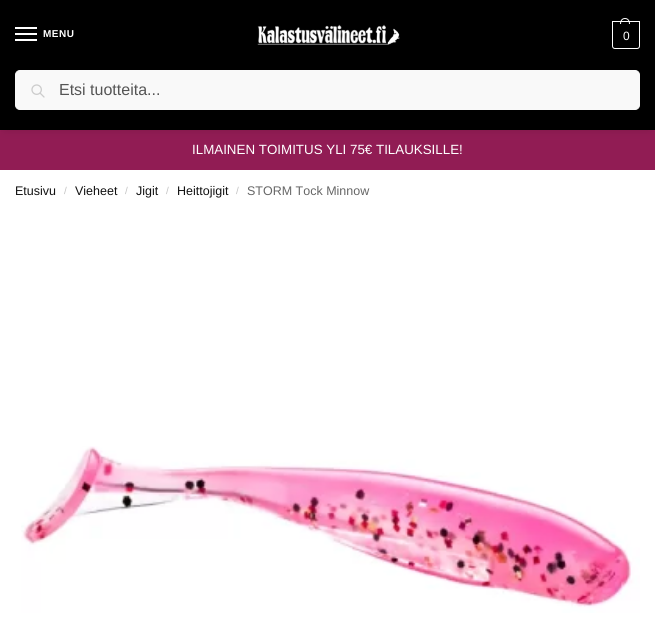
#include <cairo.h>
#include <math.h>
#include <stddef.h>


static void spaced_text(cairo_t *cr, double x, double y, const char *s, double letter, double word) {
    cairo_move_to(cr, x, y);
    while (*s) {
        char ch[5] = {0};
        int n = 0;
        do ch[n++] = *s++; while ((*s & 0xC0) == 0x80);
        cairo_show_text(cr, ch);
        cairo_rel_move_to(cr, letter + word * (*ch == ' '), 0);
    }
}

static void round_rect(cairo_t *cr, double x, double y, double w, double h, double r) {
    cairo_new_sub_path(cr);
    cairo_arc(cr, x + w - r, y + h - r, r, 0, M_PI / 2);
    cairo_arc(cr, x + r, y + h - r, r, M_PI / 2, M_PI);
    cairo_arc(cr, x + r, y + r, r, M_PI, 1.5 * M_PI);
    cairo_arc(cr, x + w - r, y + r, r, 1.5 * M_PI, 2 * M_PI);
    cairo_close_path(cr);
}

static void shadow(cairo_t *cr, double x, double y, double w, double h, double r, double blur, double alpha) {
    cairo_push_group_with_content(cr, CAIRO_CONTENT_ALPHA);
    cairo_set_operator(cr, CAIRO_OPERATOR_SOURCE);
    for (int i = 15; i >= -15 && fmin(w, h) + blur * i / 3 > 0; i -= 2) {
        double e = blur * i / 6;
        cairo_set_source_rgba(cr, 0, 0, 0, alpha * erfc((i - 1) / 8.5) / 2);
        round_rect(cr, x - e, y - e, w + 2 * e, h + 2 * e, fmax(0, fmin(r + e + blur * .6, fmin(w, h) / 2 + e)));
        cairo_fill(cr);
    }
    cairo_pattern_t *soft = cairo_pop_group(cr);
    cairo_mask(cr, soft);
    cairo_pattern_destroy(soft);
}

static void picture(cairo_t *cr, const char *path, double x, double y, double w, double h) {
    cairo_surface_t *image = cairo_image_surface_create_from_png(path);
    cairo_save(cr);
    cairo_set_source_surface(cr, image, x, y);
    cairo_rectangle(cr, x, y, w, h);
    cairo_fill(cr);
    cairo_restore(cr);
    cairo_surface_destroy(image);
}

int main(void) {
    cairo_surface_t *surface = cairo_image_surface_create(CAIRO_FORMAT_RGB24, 670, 642);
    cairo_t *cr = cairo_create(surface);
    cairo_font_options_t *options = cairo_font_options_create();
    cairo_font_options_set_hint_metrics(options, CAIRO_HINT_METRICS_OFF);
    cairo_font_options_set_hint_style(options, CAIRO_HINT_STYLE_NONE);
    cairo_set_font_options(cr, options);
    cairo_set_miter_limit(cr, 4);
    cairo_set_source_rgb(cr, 0.569, 0.11, 0.329);
    cairo_paint(cr);
    cairo_set_source_rgb(cr, 0, 0, 0);
    cairo_rectangle(cr, 0, 0, 655, 70);
    cairo_fill(cr);
    cairo_set_source_rgb(cr, 1, 1, 1);
    cairo_rectangle(cr, 15, 27, 22, 2);
    cairo_fill(cr);
    cairo_rectangle(cr, 15, 33, 22, 2);
    cairo_fill(cr);
    cairo_select_font_face(cr, "Liberation Sans", CAIRO_FONT_SLANT_NORMAL, CAIRO_FONT_WEIGHT_BOLD);
    cairo_set_font_size(cr, 10);
    spaced_text(cr, 43, 37, "MENU", 0.5, 0);
    cairo_rectangle(cr, 15, 39, 22, 2);
    cairo_fill(cr);
    picture(cr, "img1.png", 257, 24, 143, 21);
    cairo_new_path(cr);
    cairo_move_to(cr, 612.5, 21.5);
    cairo_line_to(cr, 639.5, 21.5);
    cairo_line_to(cr, 639.5, 46);
    cairo_curve_to(cr, 639.5, 47.5, 638.5, 48.5, 637, 48.5);
    cairo_line_to(cr, 615, 48.5);
    cairo_curve_to(cr, 613.5, 48.5, 612.5, 47.5, 612.5, 46);
    cairo_close_path(cr);
    cairo_set_line_width(cr, 1);
    cairo_stroke(cr);
    cairo_set_fill_rule(cr, CAIRO_FILL_RULE_EVEN_ODD);
    cairo_new_path(cr);
    cairo_move_to(cr, 625, 18);
    cairo_curve_to(cr, 628.5, 18, 630, 21, 630, 24);
    cairo_line_to(cr, 620, 24);
    cairo_curve_to(cr, 620, 21, 621.5, 18, 625, 18);
    cairo_close_path(cr);
    cairo_move_to(cr, 625, 19);
    cairo_curve_to(cr, 628, 19, 629, 21.5, 629, 24);
    cairo_line_to(cr, 621, 24);
    cairo_curve_to(cr, 621, 21.5, 622, 19, 625, 19);
    cairo_close_path(cr);
    cairo_fill(cr);
    cairo_select_font_face(cr, "Liberation Sans", CAIRO_FONT_SLANT_NORMAL, CAIRO_FONT_WEIGHT_NORMAL);
    cairo_set_font_size(cr, 12);
    spaced_text(cr, 623, 40, "0", -1, 0);
    cairo_set_source_rgb(cr, 0, 0, 0);
    shadow(cr, 5, 78, 645, 50, 0, 5, 0.18);
    cairo_set_source_rgb(cr, 0, 0, 0);
    cairo_rectangle(cr, 0, 70, 655, 60);
    cairo_fill(cr);
    cairo_set_source_rgb(cr, 0.973, 0.973, 0.973);
    round_rect(cr, 15.5, 70.5, 624, 39, 4.5);
    cairo_fill_preserve(cr);
    cairo_stroke(cr);
    picture(cr, "img2.png", 31, 84, 14, 14);
    cairo_set_font_size(cr, 16);
    cairo_set_source_rgb(cr, 0.333, 0.333, 0.333);
    cairo_move_to(cr, 59, 95);
    cairo_show_text(cr, "Etsi tuotteita...");
    cairo_set_source_rgb(cr, 1, 1, 1);
    cairo_rectangle(cr, 655, 0, 15, 642);
    cairo_fill(cr);
    cairo_set_font_size(cr, 13.35);
    cairo_move_to(cr, 192, 154);
    cairo_show_text(cr, "ILMAINEN TOIMITUS YLI 75€ TILAUKSILLE!");
    cairo_rectangle(cr, 0, 170, 655, 472);
    cairo_fill(cr);
    cairo_set_font_size(cr, 12.5);
    cairo_set_source_rgb(cr, 0.067, 0.067, 0.067);
    cairo_move_to(cr, 15, 195);
    cairo_show_text(cr, "Etusivu");
    cairo_set_font_size(cr, 10);
    cairo_set_source_rgb(cr, 0.761, 0.761, 0.761);
    cairo_move_to(cr, 64, 194);
    cairo_show_text(cr, "/");
    cairo_set_font_size(cr, 12.5);
    cairo_set_source_rgb(cr, 0.067, 0.067, 0.067);
    cairo_move_to(cr, 75, 195);
    cairo_show_text(cr, "Vieheet");
    cairo_set_font_size(cr, 10);
    cairo_set_source_rgb(cr, 0.761, 0.761, 0.761);
    cairo_move_to(cr, 125, 194);
    cairo_show_text(cr, "/");
    cairo_set_font_size(cr, 12.5);
    cairo_set_source_rgb(cr, 0.067, 0.067, 0.067);
    cairo_move_to(cr, 136, 195);
    cairo_show_text(cr, "Jigit");
    cairo_set_font_size(cr, 10);
    cairo_set_source_rgb(cr, 0.761, 0.761, 0.761);
    cairo_move_to(cr, 166, 194);
    cairo_show_text(cr, "/");
    cairo_set_font_size(cr, 12.5);
    cairo_set_source_rgb(cr, 0.067, 0.067, 0.067);
    cairo_move_to(cr, 177, 195);
    cairo_show_text(cr, "Heittojigit");
    cairo_set_font_size(cr, 10);
    cairo_set_source_rgb(cr, 0.761, 0.761, 0.761);
    cairo_move_to(cr, 236, 194);
    cairo_show_text(cr, "/");
    cairo_set_font_size(cr, 12.5);
    cairo_set_source_rgb(cr, 0.4, 0.4, 0.4);
    cairo_move_to(cr, 247, 195);
    cairo_show_text(cr, "STORM Tock Minnow");
    picture(cr, "img3.png", 21, 446, 619, 167);
    cairo_surface_write_to_png(surface, "page.png");
    cairo_font_options_destroy(options);
    cairo_destroy(cr);
    cairo_surface_destroy(surface);
    return 0;
}
